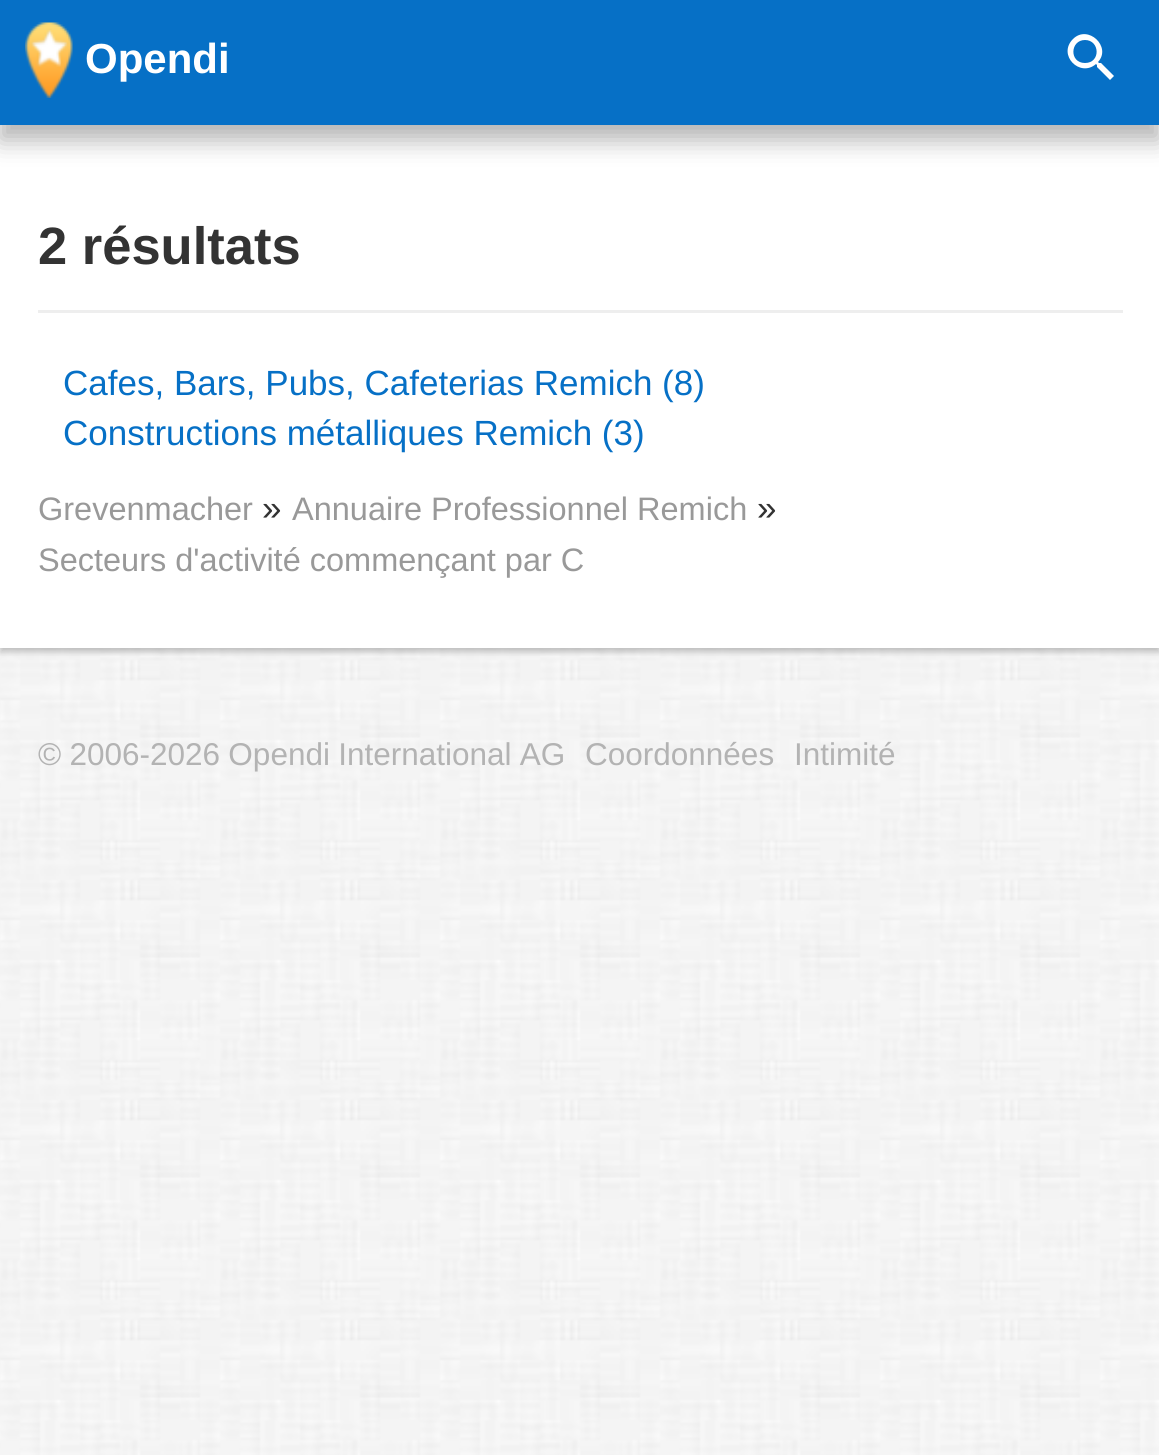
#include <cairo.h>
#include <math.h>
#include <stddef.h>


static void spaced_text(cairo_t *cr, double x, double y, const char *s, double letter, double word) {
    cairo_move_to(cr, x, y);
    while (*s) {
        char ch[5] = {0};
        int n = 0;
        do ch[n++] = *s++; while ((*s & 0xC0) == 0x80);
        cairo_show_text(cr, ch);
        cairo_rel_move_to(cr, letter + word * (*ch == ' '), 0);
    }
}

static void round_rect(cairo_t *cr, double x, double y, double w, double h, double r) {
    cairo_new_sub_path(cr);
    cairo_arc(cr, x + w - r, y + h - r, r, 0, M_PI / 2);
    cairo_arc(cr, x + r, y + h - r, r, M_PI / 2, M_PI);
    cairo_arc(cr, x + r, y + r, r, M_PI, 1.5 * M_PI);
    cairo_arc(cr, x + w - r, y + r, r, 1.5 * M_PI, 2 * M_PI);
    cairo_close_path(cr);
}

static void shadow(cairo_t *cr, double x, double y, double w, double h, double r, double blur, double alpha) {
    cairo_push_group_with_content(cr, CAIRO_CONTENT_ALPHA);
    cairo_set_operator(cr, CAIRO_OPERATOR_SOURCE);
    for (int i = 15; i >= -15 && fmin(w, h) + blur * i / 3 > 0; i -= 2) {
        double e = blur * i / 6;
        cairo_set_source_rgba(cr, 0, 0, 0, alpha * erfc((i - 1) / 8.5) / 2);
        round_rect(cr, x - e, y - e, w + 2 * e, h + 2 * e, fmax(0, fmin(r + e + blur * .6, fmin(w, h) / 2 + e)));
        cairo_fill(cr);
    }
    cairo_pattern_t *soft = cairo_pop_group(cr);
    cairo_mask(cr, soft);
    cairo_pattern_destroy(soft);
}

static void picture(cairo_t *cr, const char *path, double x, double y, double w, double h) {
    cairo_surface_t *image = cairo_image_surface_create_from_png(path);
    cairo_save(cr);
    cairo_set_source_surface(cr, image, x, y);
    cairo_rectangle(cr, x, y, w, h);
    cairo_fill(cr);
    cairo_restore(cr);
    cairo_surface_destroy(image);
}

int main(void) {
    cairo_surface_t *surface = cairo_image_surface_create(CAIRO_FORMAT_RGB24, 1159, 1455);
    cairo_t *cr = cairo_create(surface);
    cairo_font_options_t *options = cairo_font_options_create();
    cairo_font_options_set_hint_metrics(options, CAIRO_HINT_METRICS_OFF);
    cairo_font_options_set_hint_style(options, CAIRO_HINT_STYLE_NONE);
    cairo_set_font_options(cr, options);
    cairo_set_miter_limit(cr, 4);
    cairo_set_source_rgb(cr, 1, 1, 1);
    cairo_paint(cr);
    picture(cr, "img1.png", 0, 648, 1159, 807);
    cairo_set_source_rgb(cr, 0, 0, 0);
    shadow(cr, 0, 125, 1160, 523, 0, 2.5, 0.12);
    shadow(cr, 0, 130, 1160, 523, 0, 2.5, 0.16);
    cairo_set_source_rgb(cr, 1, 1, 1);
    cairo_rectangle(cr, 0, 125, 1159, 523);
    cairo_fill(cr);
    cairo_set_source_rgb(cr, 0, 0, 0);
    shadow(cr, 0, 15, 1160, 125, 0, 12.5, 0.3);
    cairo_set_source_rgb(cr, 0.024, 0.439, 0.776);
    cairo_rectangle(cr, 0, 0, 1159, 125);
    cairo_fill(cr);
    picture(cr, "img2.png", 25, 22, 48, 76);
    cairo_select_font_face(cr, "Liberation Sans", CAIRO_FONT_SLANT_NORMAL, CAIRO_FONT_WEIGHT_BOLD);
    cairo_set_font_size(cr, 42);
    cairo_set_source_rgb(cr, 1, 1, 1);
    cairo_move_to(cr, 85, 73);
    cairo_show_text(cr, "Opendi");
    cairo_new_path(cr);
    cairo_move_to(cr, 1101, 63);
    cairo_line_to(cr, 1099, 63);
    cairo_line_to(cr, 1098, 62);
    cairo_curve_to(cr, 1112, 47, 1088, 24, 1073, 39);
    cairo_curve_to(cr, 1057, 55, 1080, 78, 1096, 64);
    cairo_line_to(cr, 1097, 65);
    cairo_line_to(cr, 1097, 67);
    cairo_line_to(cr, 1110, 80);
    cairo_line_to(cr, 1114, 76);
    cairo_close_path(cr);
    cairo_move_to(cr, 1085, 63);
    cairo_curve_to(cr, 1069, 63, 1070, 40, 1085, 40);
    cairo_curve_to(cr, 1100, 40, 1101, 63, 1085, 63);
    cairo_close_path(cr);
    cairo_fill(cr);
    cairo_set_source_rgb(cr, 0.933, 0.933, 0.933);
    cairo_rectangle(cr, 38, 310, 1085, 3);
    cairo_fill(cr);
    cairo_set_font_size(cr, 52.5);
    cairo_set_source_rgb(cr, 0.2, 0.2, 0.2);
    cairo_move_to(cr, 38, 264);
    cairo_show_text(cr, "2 résultats");
    cairo_select_font_face(cr, "Liberation Sans", CAIRO_FONT_SLANT_NORMAL, CAIRO_FONT_WEIGHT_NORMAL);
    cairo_set_font_size(cr, 35);
    cairo_set_source_rgb(cr, 0.024, 0.439, 0.776);
    cairo_move_to(cr, 63, 395);
    cairo_show_text(cr, "Cafes, Bars, Pubs, Cafeterias Remich (8)");
    cairo_move_to(cr, 63, 445);
    cairo_show_text(cr, "Constructions métalliques Remich (3)");
    cairo_set_font_size(cr, 32.5);
    cairo_set_source_rgb(cr, 0.6, 0.6, 0.6);
    cairo_move_to(cr, 38, 520);
    cairo_show_text(cr, "Grevenmacher");
    cairo_set_font_size(cr, 35);
    cairo_set_source_rgb(cr, 0.2, 0.2, 0.2);
    cairo_move_to(cr, 262, 520);
    cairo_show_text(cr, "»");
    cairo_set_font_size(cr, 32.5);
    cairo_set_source_rgb(cr, 0.6, 0.6, 0.6);
    cairo_move_to(cr, 292, 520);
    cairo_show_text(cr, "Annuaire Professionnel Remich");
    cairo_set_font_size(cr, 35);
    cairo_set_source_rgb(cr, 0.2, 0.2, 0.2);
    cairo_move_to(cr, 757, 520);
    cairo_show_text(cr, "»");
    cairo_set_font_size(cr, 32.5);
    cairo_set_source_rgb(cr, 0.6, 0.6, 0.6);
    cairo_move_to(cr, 38, 571);
    cairo_show_text(cr, "Secteurs d'activité commençant par C");
    cairo_set_font_size(cr, 31.5);
    cairo_set_source_rgb(cr, 0.702, 0.702, 0.702);
    spaced_text(cr, 38, 765, "© 2006-2026 Opendi International AG", 0, -0.5);
    cairo_move_to(cr, 585, 765);
    cairo_show_text(cr, "Coordonnées");
    cairo_move_to(cr, 794, 765);
    cairo_show_text(cr, "Intimité");
    cairo_surface_write_to_png(surface, "page.png");
    cairo_font_options_destroy(options);
    cairo_destroy(cr);
    cairo_surface_destroy(surface);
    return 0;
}
